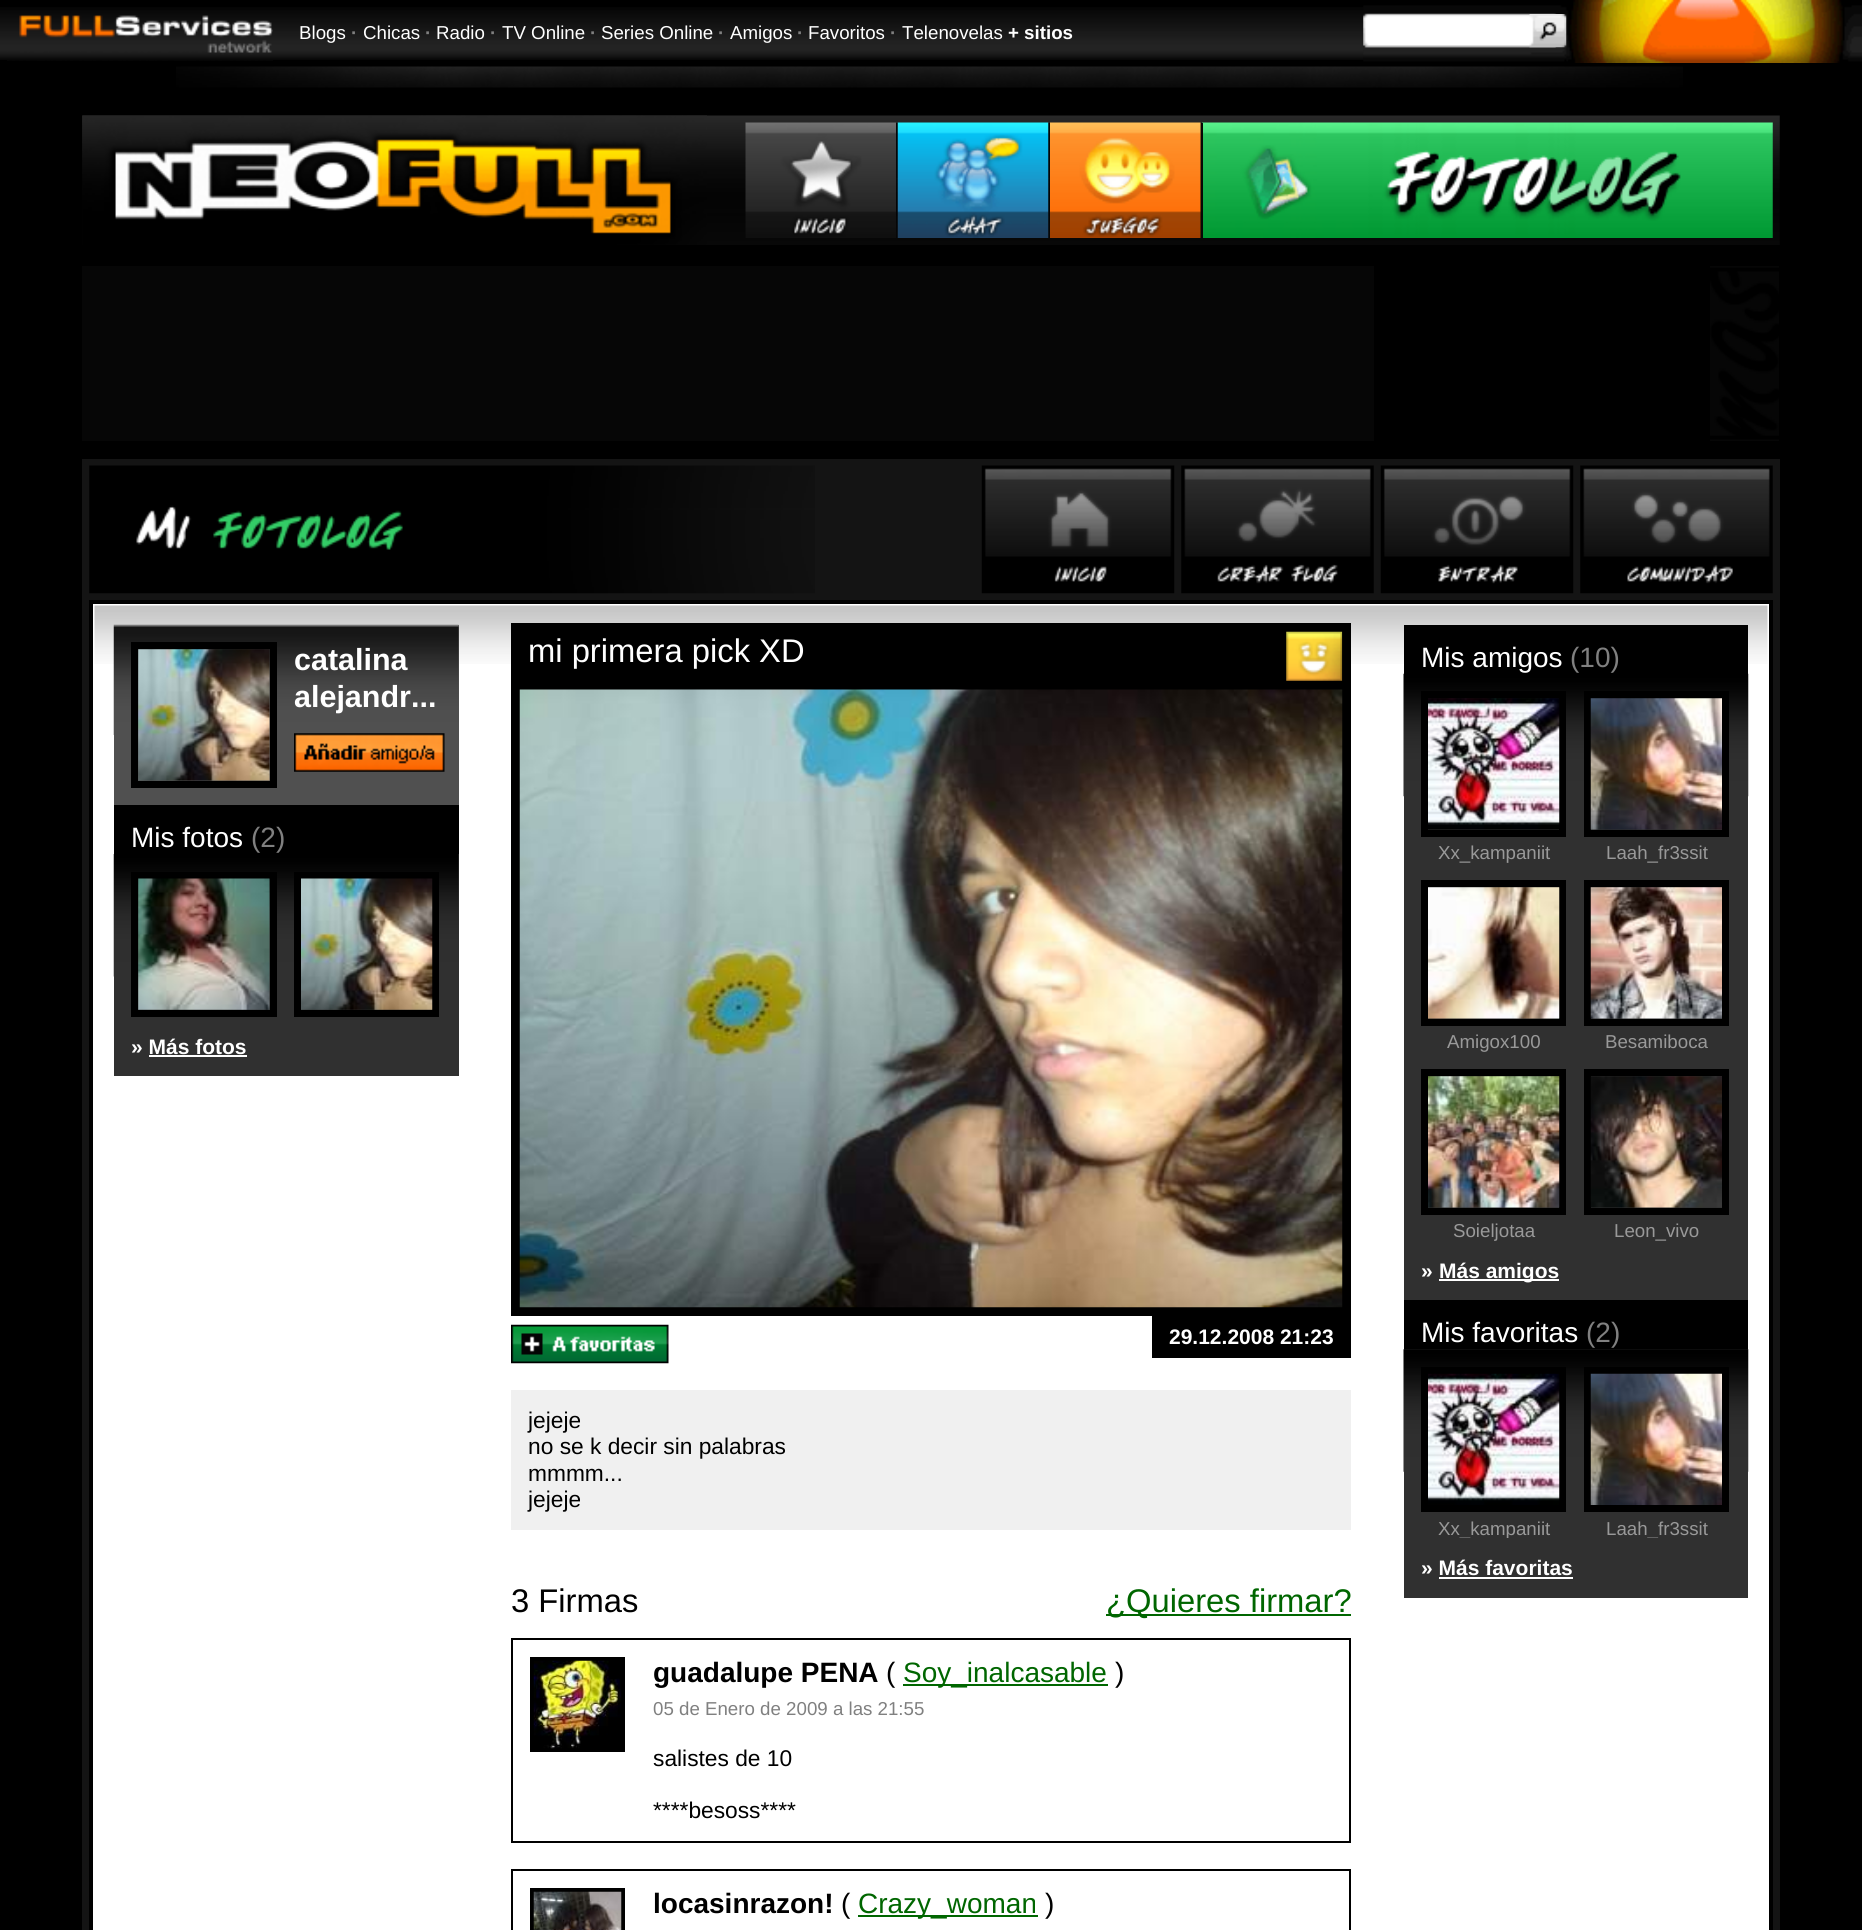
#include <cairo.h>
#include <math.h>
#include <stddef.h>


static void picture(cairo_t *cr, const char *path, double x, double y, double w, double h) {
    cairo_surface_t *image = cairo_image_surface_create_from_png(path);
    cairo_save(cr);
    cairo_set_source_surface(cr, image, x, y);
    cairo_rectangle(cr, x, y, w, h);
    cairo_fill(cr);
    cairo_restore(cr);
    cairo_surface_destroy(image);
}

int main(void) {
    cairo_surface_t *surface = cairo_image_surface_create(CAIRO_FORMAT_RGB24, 1862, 1930);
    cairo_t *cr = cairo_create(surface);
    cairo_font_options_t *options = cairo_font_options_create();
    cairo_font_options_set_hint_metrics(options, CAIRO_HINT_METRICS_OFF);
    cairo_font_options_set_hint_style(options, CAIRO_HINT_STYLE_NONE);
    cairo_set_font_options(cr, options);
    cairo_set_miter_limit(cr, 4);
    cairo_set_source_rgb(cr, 0, 0, 0);
    cairo_paint(cr);
    picture(cr, "img1.png", 0, 7, 1364, 53);
    picture(cr, "img2.png", 7, 15, 266, 46);
    cairo_select_font_face(cr, "Liberation Sans", CAIRO_FONT_SLANT_NORMAL, CAIRO_FONT_WEIGHT_NORMAL);
    cairo_set_font_size(cr, 18.7);
    cairo_set_source_rgb(cr, 1, 1, 1);
    cairo_move_to(cr, 299, 39);
    cairo_show_text(cr, "Blogs");
    cairo_select_font_face(cr, "Liberation Sans", CAIRO_FONT_SLANT_NORMAL, CAIRO_FONT_WEIGHT_BOLD);
    cairo_set_source_rgb(cr, 0.502, 0.502, 0.502);
    cairo_move_to(cr, 351, 39);
    cairo_show_text(cr, "·");
    cairo_select_font_face(cr, "Liberation Sans", CAIRO_FONT_SLANT_NORMAL, CAIRO_FONT_WEIGHT_NORMAL);
    cairo_set_source_rgb(cr, 1, 1, 1);
    cairo_move_to(cr, 363, 39);
    cairo_show_text(cr, "Chicas");
    cairo_select_font_face(cr, "Liberation Sans", CAIRO_FONT_SLANT_NORMAL, CAIRO_FONT_WEIGHT_BOLD);
    cairo_set_source_rgb(cr, 0.502, 0.502, 0.502);
    cairo_move_to(cr, 425, 39);
    cairo_show_text(cr, "·");
    cairo_select_font_face(cr, "Liberation Sans", CAIRO_FONT_SLANT_NORMAL, CAIRO_FONT_WEIGHT_NORMAL);
    cairo_set_source_rgb(cr, 1, 1, 1);
    cairo_move_to(cr, 436, 39);
    cairo_show_text(cr, "Radio");
    cairo_select_font_face(cr, "Liberation Sans", CAIRO_FONT_SLANT_NORMAL, CAIRO_FONT_WEIGHT_BOLD);
    cairo_set_source_rgb(cr, 0.502, 0.502, 0.502);
    cairo_move_to(cr, 490, 39);
    cairo_show_text(cr, "·");
    cairo_select_font_face(cr, "Liberation Sans", CAIRO_FONT_SLANT_NORMAL, CAIRO_FONT_WEIGHT_NORMAL);
    cairo_set_source_rgb(cr, 1, 1, 1);
    cairo_move_to(cr, 502, 39);
    cairo_show_text(cr, "TV Online");
    cairo_select_font_face(cr, "Liberation Sans", CAIRO_FONT_SLANT_NORMAL, CAIRO_FONT_WEIGHT_BOLD);
    cairo_set_source_rgb(cr, 0.502, 0.502, 0.502);
    cairo_move_to(cr, 590, 39);
    cairo_show_text(cr, "·");
    cairo_select_font_face(cr, "Liberation Sans", CAIRO_FONT_SLANT_NORMAL, CAIRO_FONT_WEIGHT_NORMAL);
    cairo_set_source_rgb(cr, 1, 1, 1);
    cairo_move_to(cr, 601, 39);
    cairo_show_text(cr, "Series Online");
    cairo_select_font_face(cr, "Liberation Sans", CAIRO_FONT_SLANT_NORMAL, CAIRO_FONT_WEIGHT_BOLD);
    cairo_set_source_rgb(cr, 0.502, 0.502, 0.502);
    cairo_move_to(cr, 718, 39);
    cairo_show_text(cr, "·");
    cairo_select_font_face(cr, "Liberation Sans", CAIRO_FONT_SLANT_NORMAL, CAIRO_FONT_WEIGHT_NORMAL);
    cairo_set_source_rgb(cr, 1, 1, 1);
    cairo_move_to(cr, 730, 39);
    cairo_show_text(cr, "Amigos");
    cairo_select_font_face(cr, "Liberation Sans", CAIRO_FONT_SLANT_NORMAL, CAIRO_FONT_WEIGHT_BOLD);
    cairo_set_source_rgb(cr, 0.502, 0.502, 0.502);
    cairo_move_to(cr, 797, 39);
    cairo_show_text(cr, "·");
    cairo_select_font_face(cr, "Liberation Sans", CAIRO_FONT_SLANT_NORMAL, CAIRO_FONT_WEIGHT_NORMAL);
    cairo_set_source_rgb(cr, 1, 1, 1);
    cairo_move_to(cr, 808, 39);
    cairo_show_text(cr, "Favoritos");
    cairo_select_font_face(cr, "Liberation Sans", CAIRO_FONT_SLANT_NORMAL, CAIRO_FONT_WEIGHT_BOLD);
    cairo_set_source_rgb(cr, 0.502, 0.502, 0.502);
    cairo_move_to(cr, 890, 39);
    cairo_show_text(cr, "·");
    cairo_select_font_face(cr, "Liberation Sans", CAIRO_FONT_SLANT_NORMAL, CAIRO_FONT_WEIGHT_NORMAL);
    cairo_set_source_rgb(cr, 1, 1, 1);
    cairo_move_to(cr, 902, 39);
    cairo_show_text(cr, "Telenovelas");
    cairo_select_font_face(cr, "Liberation Sans", CAIRO_FONT_SLANT_NORMAL, CAIRO_FONT_WEIGHT_BOLD);
    cairo_move_to(cr, 1008, 39);
    cairo_show_text(cr, "+ sitios");
    picture(cr, "img3.png", 1363, 0, 499, 63);
    picture(cr, "img4.png", 1529, 14, 38, 34);
    picture(cr, "img5.png", 176, 66, 1507, 22);
    picture(cr, "img6.png", 82, 115, 1698, 130);
    picture(cr, "img7.png", 82, 115, 625, 130);
    picture(cr, "img8.png", 1202, 122, 571, 116);
    cairo_set_source_rgb(cr, 0.024, 0.024, 0.024);
    cairo_rectangle(cr, 896, 123, 2, 55);
    cairo_fill(cr);
    picture(cr, "img9.png", 745, 122, 151, 116);
    cairo_rectangle(cr, 1048, 123, 2, 55);
    cairo_fill(cr);
    picture(cr, "img10.png", 897, 122, 152, 116);
    cairo_rectangle(cr, 1201, 123, 2, 115);
    cairo_fill(cr);
    picture(cr, "img11.png", 1050, 122, 151, 116);
    picture(cr, "img12.png", 1710, 266, 69, 175);
    cairo_rectangle(cr, 82, 266, 1292, 175);
    cairo_fill(cr);
    cairo_set_source_rgb(cr, 0.082, 0.082, 0.082);
    cairo_rectangle(cr, 82, 459, 1698, 1471);
    cairo_fill(cr);
    picture(cr, "img13.png", 89, 465, 726, 129);
    picture(cr, "img14.png", 981, 465, 194, 129);
    picture(cr, "img15.png", 1181, 465, 193, 129);
    picture(cr, "img16.png", 1380, 465, 194, 129);
    picture(cr, "img17.png", 1580, 465, 193, 129);
    cairo_set_source_rgb(cr, 1, 1, 1);
    cairo_rectangle(cr, 91, 602, 1680, 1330);
    cairo_fill_preserve(cr);
    cairo_set_source_rgb(cr, 0, 0, 0);
    cairo_set_line_width(cr, 4);
    cairo_stroke(cr);
    picture(cr, "img18.png", 94, 605, 1674, 59);
    cairo_set_source_rgb(cr, 0.314, 0.314, 0.314);
    cairo_rectangle(cr, 114, 625, 345, 180);
    cairo_fill(cr);
    picture(cr, "img19.png", 113, 624, 346, 111);
    cairo_rectangle(cr, 134.5, 645.5, 139, 139);
    cairo_set_source_rgb(cr, 0, 0, 0);
    cairo_set_line_width(cr, 7);
    cairo_stroke(cr);
    picture(cr, "img20.png", 138, 649, 132, 132);
    cairo_set_font_size(cr, 30.5);
    cairo_set_source_rgb(cr, 1, 1, 1);
    cairo_move_to(cr, 294, 670);
    cairo_show_text(cr, "catalina");
    cairo_move_to(cr, 294, 707);
    cairo_show_text(cr, "alejandr...");
    picture(cr, "img21.png", 294, 733, 151, 39);
    cairo_set_source_rgb(cr, 0, 0, 0);
    cairo_rectangle(cr, 114, 805, 345, 49);
    cairo_fill(cr);
    cairo_select_font_face(cr, "Liberation Sans", CAIRO_FONT_SLANT_NORMAL, CAIRO_FONT_WEIGHT_NORMAL);
    cairo_set_font_size(cr, 28);
    cairo_set_source_rgb(cr, 1, 1, 1);
    cairo_move_to(cr, 131, 847);
    cairo_show_text(cr, "Mis fotos");
    cairo_set_source_rgb(cr, 0.502, 0.502, 0.502);
    cairo_move_to(cr, 251, 847);
    cairo_show_text(cr, "(2)");
    cairo_set_source_rgb(cr, 0.188, 0.188, 0.188);
    cairo_rectangle(cr, 114, 854, 345, 222);
    cairo_fill(cr);
    picture(cr, "img22.png", 113, 854, 346, 123);
    cairo_rectangle(cr, 134.5, 875.5, 139, 138);
    cairo_set_source_rgb(cr, 0, 0, 0);
    cairo_stroke(cr);
    picture(cr, "img23.png", 138, 878, 132, 132);
    cairo_rectangle(cr, 297.5, 875.5, 138, 138);
    cairo_stroke(cr);
    picture(cr, "img24.png", 301, 878, 132, 132);
    cairo_select_font_face(cr, "Liberation Sans", CAIRO_FONT_SLANT_NORMAL, CAIRO_FONT_WEIGHT_BOLD);
    cairo_set_font_size(cr, 21);
    cairo_set_source_rgb(cr, 1, 1, 1);
    cairo_move_to(cr, 131, 1054);
    cairo_show_text(cr, "» Más fotos");
    cairo_rectangle(cr, 149, 1055, 98, 2);
    cairo_fill(cr);
    cairo_set_source_rgb(cr, 0, 0, 0);
    cairo_rectangle(cr, 511, 623, 840, 693);
    cairo_fill(cr);
    cairo_select_font_face(cr, "Liberation Sans", CAIRO_FONT_SLANT_NORMAL, CAIRO_FONT_WEIGHT_NORMAL);
    cairo_set_font_size(cr, 32.75);
    cairo_set_source_rgb(cr, 1, 1, 1);
    cairo_move_to(cr, 528, 662);
    cairo_show_text(cr, "mi primera pick XD");
    picture(cr, "img25.png", 1286, 631, 57, 50);
    picture(cr, "img26.png", 519, 689, 824, 619);
    picture(cr, "img27.png", 511, 1324, 158, 40);
    cairo_set_source_rgb(cr, 0, 0, 0);
    cairo_rectangle(cr, 1152, 1316, 199, 42);
    cairo_fill(cr);
    cairo_select_font_face(cr, "Liberation Sans", CAIRO_FONT_SLANT_NORMAL, CAIRO_FONT_WEIGHT_BOLD);
    cairo_set_font_size(cr, 21);
    cairo_set_source_rgb(cr, 1, 1, 1);
    cairo_move_to(cr, 1169, 1344);
    cairo_show_text(cr, "29.12.2008 21:23");
    cairo_set_source_rgb(cr, 0.941, 0.941, 0.941);
    cairo_rectangle(cr, 511, 1390, 840, 140);
    cairo_fill(cr);
    cairo_select_font_face(cr, "Liberation Sans", CAIRO_FONT_SLANT_NORMAL, CAIRO_FONT_WEIGHT_NORMAL);
    cairo_set_font_size(cr, 22.75);
    cairo_set_source_rgb(cr, 0, 0, 0);
    cairo_move_to(cr, 528, 1428);
    cairo_show_text(cr, "jejeje");
    cairo_move_to(cr, 528, 1454);
    cairo_show_text(cr, "no se k decir sin palabras");
    cairo_move_to(cr, 528, 1481);
    cairo_show_text(cr, "mmmm...");
    cairo_move_to(cr, 528, 1507);
    cairo_show_text(cr, "jejeje");
    cairo_set_font_size(cr, 32.75);
    cairo_move_to(cr, 511, 1612);
    cairo_show_text(cr, "3 Firmas");
    cairo_set_source_rgb(cr, 0, 0.4, 0);
    cairo_rectangle(cr, 1106, 1614, 245, 2);
    cairo_fill(cr);
    cairo_move_to(cr, 1106, 1612);
    cairo_show_text(cr, "¿Quieres firmar?");
    cairo_rectangle(cr, 512, 1639, 838, 203);
    cairo_set_source_rgb(cr, 0, 0, 0);
    cairo_set_line_width(cr, 2);
    cairo_stroke(cr);
    cairo_rectangle(cr, 532, 1659, 91, 91);
    cairo_set_line_width(cr, 4);
    cairo_stroke(cr);
    picture(cr, "img28.png", 533, 1660, 89, 89);
    cairo_select_font_face(cr, "Liberation Sans", CAIRO_FONT_SLANT_NORMAL, CAIRO_FONT_WEIGHT_BOLD);
    cairo_set_font_size(cr, 28);
    cairo_move_to(cr, 653, 1682);
    cairo_show_text(cr, "guadalupe PENA");
    cairo_select_font_face(cr, "Liberation Sans", CAIRO_FONT_SLANT_NORMAL, CAIRO_FONT_WEIGHT_NORMAL);
    cairo_move_to(cr, 886, 1682);
    cairo_show_text(cr, "(");
    cairo_set_source_rgb(cr, 0, 0.4, 0);
    cairo_rectangle(cr, 903, 1684, 205, 2);
    cairo_fill(cr);
    cairo_move_to(cr, 903, 1682);
    cairo_show_text(cr, "Soy_inalcasable");
    cairo_set_source_rgb(cr, 0, 0, 0);
    cairo_move_to(cr, 1115, 1682);
    cairo_show_text(cr, ")");
    cairo_set_font_size(cr, 18.7);
    cairo_set_source_rgb(cr, 0.502, 0.502, 0.502);
    cairo_move_to(cr, 653, 1715);
    cairo_show_text(cr, "05 de Enero de 2009 a las 21:55");
    cairo_set_font_size(cr, 22.75);
    cairo_set_source_rgb(cr, 0, 0, 0);
    cairo_move_to(cr, 653, 1766);
    cairo_show_text(cr, "salistes de 10");
    cairo_move_to(cr, 653, 1818);
    cairo_show_text(cr, "****besoss****");
    cairo_rectangle(cr, 512, 1870, 838, 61);
    cairo_set_line_width(cr, 2);
    cairo_stroke(cr);
    cairo_rectangle(cr, 532, 1890, 91, 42);
    cairo_set_line_width(cr, 4);
    cairo_stroke(cr);
    picture(cr, "img29.png", 533, 1891, 89, 39);
    cairo_select_font_face(cr, "Liberation Sans", CAIRO_FONT_SLANT_NORMAL, CAIRO_FONT_WEIGHT_BOLD);
    cairo_set_font_size(cr, 28);
    cairo_move_to(cr, 653, 1913);
    cairo_show_text(cr, "locasinrazon!");
    cairo_select_font_face(cr, "Liberation Sans", CAIRO_FONT_SLANT_NORMAL, CAIRO_FONT_WEIGHT_NORMAL);
    cairo_move_to(cr, 841, 1913);
    cairo_show_text(cr, "(");
    cairo_set_source_rgb(cr, 0, 0.4, 0);
    cairo_rectangle(cr, 858, 1915, 180, 2);
    cairo_fill(cr);
    cairo_move_to(cr, 858, 1913);
    cairo_show_text(cr, "Crazy_woman");
    cairo_set_source_rgb(cr, 0, 0, 0);
    cairo_move_to(cr, 1045, 1913);
    cairo_show_text(cr, ")");
    cairo_rectangle(cr, 1404, 625, 344, 49);
    cairo_fill(cr);
    cairo_set_source_rgb(cr, 1, 1, 1);
    cairo_move_to(cr, 1421, 667);
    cairo_show_text(cr, "Mis amigos");
    cairo_set_source_rgb(cr, 0.502, 0.502, 0.502);
    cairo_move_to(cr, 1570, 667);
    cairo_show_text(cr, "(10)");
    cairo_set_source_rgb(cr, 0.188, 0.188, 0.188);
    cairo_rectangle(cr, 1404, 796, 344, 504);
    cairo_fill(cr);
    picture(cr, "img30.png", 1403, 673, 346, 124);
    cairo_rectangle(cr, 1424.5, 694.5, 138, 139);
    cairo_set_source_rgb(cr, 0, 0, 0);
    cairo_set_line_width(cr, 7);
    cairo_stroke(cr);
    picture(cr, "img31.png", 1428, 698, 132, 132);
    cairo_set_font_size(cr, 18.7);
    cairo_set_source_rgb(cr, 0.6, 0.6, 0.6);
    cairo_move_to(cr, 1438, 859);
    cairo_show_text(cr, "Xx_kampaniit");
    cairo_rectangle(cr, 1587.5, 694.5, 138, 139);
    cairo_set_source_rgb(cr, 0, 0, 0);
    cairo_stroke(cr);
    picture(cr, "img32.png", 1590, 698, 132, 132);
    cairo_set_source_rgb(cr, 0.6, 0.6, 0.6);
    cairo_move_to(cr, 1606, 859);
    cairo_show_text(cr, "Laah_fr3ssit");
    cairo_rectangle(cr, 1424.5, 883.5, 138, 139);
    cairo_set_source_rgb(cr, 0, 0, 0);
    cairo_stroke(cr);
    picture(cr, "img33.png", 1428, 887, 132, 132);
    cairo_set_source_rgb(cr, 0.6, 0.6, 0.6);
    cairo_move_to(cr, 1447, 1048);
    cairo_show_text(cr, "Amigox100");
    cairo_rectangle(cr, 1587.5, 883.5, 138, 139);
    cairo_set_source_rgb(cr, 0, 0, 0);
    cairo_stroke(cr);
    picture(cr, "img34.png", 1590, 887, 132, 132);
    cairo_set_source_rgb(cr, 0.6, 0.6, 0.6);
    cairo_move_to(cr, 1605, 1048);
    cairo_show_text(cr, "Besamiboca");
    cairo_rectangle(cr, 1424.5, 1072.5, 138, 139);
    cairo_set_source_rgb(cr, 0, 0, 0);
    cairo_stroke(cr);
    picture(cr, "img35.png", 1428, 1076, 132, 132);
    cairo_set_source_rgb(cr, 0.6, 0.6, 0.6);
    cairo_move_to(cr, 1453, 1237);
    cairo_show_text(cr, "Soieljotaa");
    cairo_rectangle(cr, 1587.5, 1072.5, 138, 139);
    cairo_set_source_rgb(cr, 0, 0, 0);
    cairo_stroke(cr);
    picture(cr, "img36.png", 1590, 1076, 132, 132);
    cairo_set_source_rgb(cr, 0.6, 0.6, 0.6);
    cairo_move_to(cr, 1614, 1237);
    cairo_show_text(cr, "Leon_vivo");
    cairo_select_font_face(cr, "Liberation Sans", CAIRO_FONT_SLANT_NORMAL, CAIRO_FONT_WEIGHT_BOLD);
    cairo_set_font_size(cr, 21);
    cairo_set_source_rgb(cr, 1, 1, 1);
    cairo_move_to(cr, 1421, 1278);
    cairo_show_text(cr, "»");
    cairo_rectangle(cr, 1439, 1279, 120, 2);
    cairo_fill(cr);
    cairo_move_to(cr, 1439, 1278);
    cairo_show_text(cr, "Más amigos");
    cairo_set_source_rgb(cr, 0, 0, 0);
    cairo_rectangle(cr, 1404, 1300, 344, 49);
    cairo_fill(cr);
    cairo_select_font_face(cr, "Liberation Sans", CAIRO_FONT_SLANT_NORMAL, CAIRO_FONT_WEIGHT_NORMAL);
    cairo_set_font_size(cr, 28);
    cairo_set_source_rgb(cr, 1, 1, 1);
    cairo_move_to(cr, 1421, 1342);
    cairo_show_text(cr, "Mis favoritas");
    cairo_set_source_rgb(cr, 0.502, 0.502, 0.502);
    cairo_move_to(cr, 1586, 1342);
    cairo_show_text(cr, "(2)");
    cairo_set_source_rgb(cr, 0.188, 0.188, 0.188);
    cairo_rectangle(cr, 1404, 1349, 344, 249);
    cairo_fill(cr);
    picture(cr, "img37.png", 1403, 1349, 346, 123);
    cairo_rectangle(cr, 1424.5, 1370.5, 138, 138);
    cairo_set_source_rgb(cr, 0, 0, 0);
    cairo_stroke(cr);
    picture(cr, "img38.png", 1428, 1373, 132, 132);
    cairo_save(cr);
    cairo_rectangle(cr, 1421, 1512, 145, 26);
    cairo_clip(cr);
    cairo_set_font_size(cr, 18.7);
    cairo_set_source_rgb(cr, 0.6, 0.6, 0.6);
    cairo_move_to(cr, 1438, 1535);
    cairo_show_text(cr, "Xx_kampaniit");
    cairo_restore(cr);
    cairo_rectangle(cr, 1587.5, 1370.5, 138, 138);
    cairo_stroke(cr);
    picture(cr, "img39.png", 1590, 1373, 132, 132);
    cairo_save(cr);
    cairo_rectangle(cr, 1584, 1512, 145, 26);
    cairo_clip(cr);
    cairo_set_font_size(cr, 18.7);
    cairo_set_source_rgb(cr, 0.6, 0.6, 0.6);
    cairo_move_to(cr, 1606, 1535);
    cairo_show_text(cr, "Laah_fr3ssit");
    cairo_restore(cr);
    cairo_select_font_face(cr, "Liberation Sans", CAIRO_FONT_SLANT_NORMAL, CAIRO_FONT_WEIGHT_BOLD);
    cairo_set_font_size(cr, 21);
    cairo_set_source_rgb(cr, 1, 1, 1);
    cairo_move_to(cr, 1421, 1575);
    cairo_show_text(cr, "» Más favoritas");
    cairo_rectangle(cr, 1439, 1577, 134, 2);
    cairo_fill(cr);
    cairo_surface_write_to_png(surface, "page.png");
    cairo_font_options_destroy(options);
    cairo_destroy(cr);
    cairo_surface_destroy(surface);
    return 0;
}
